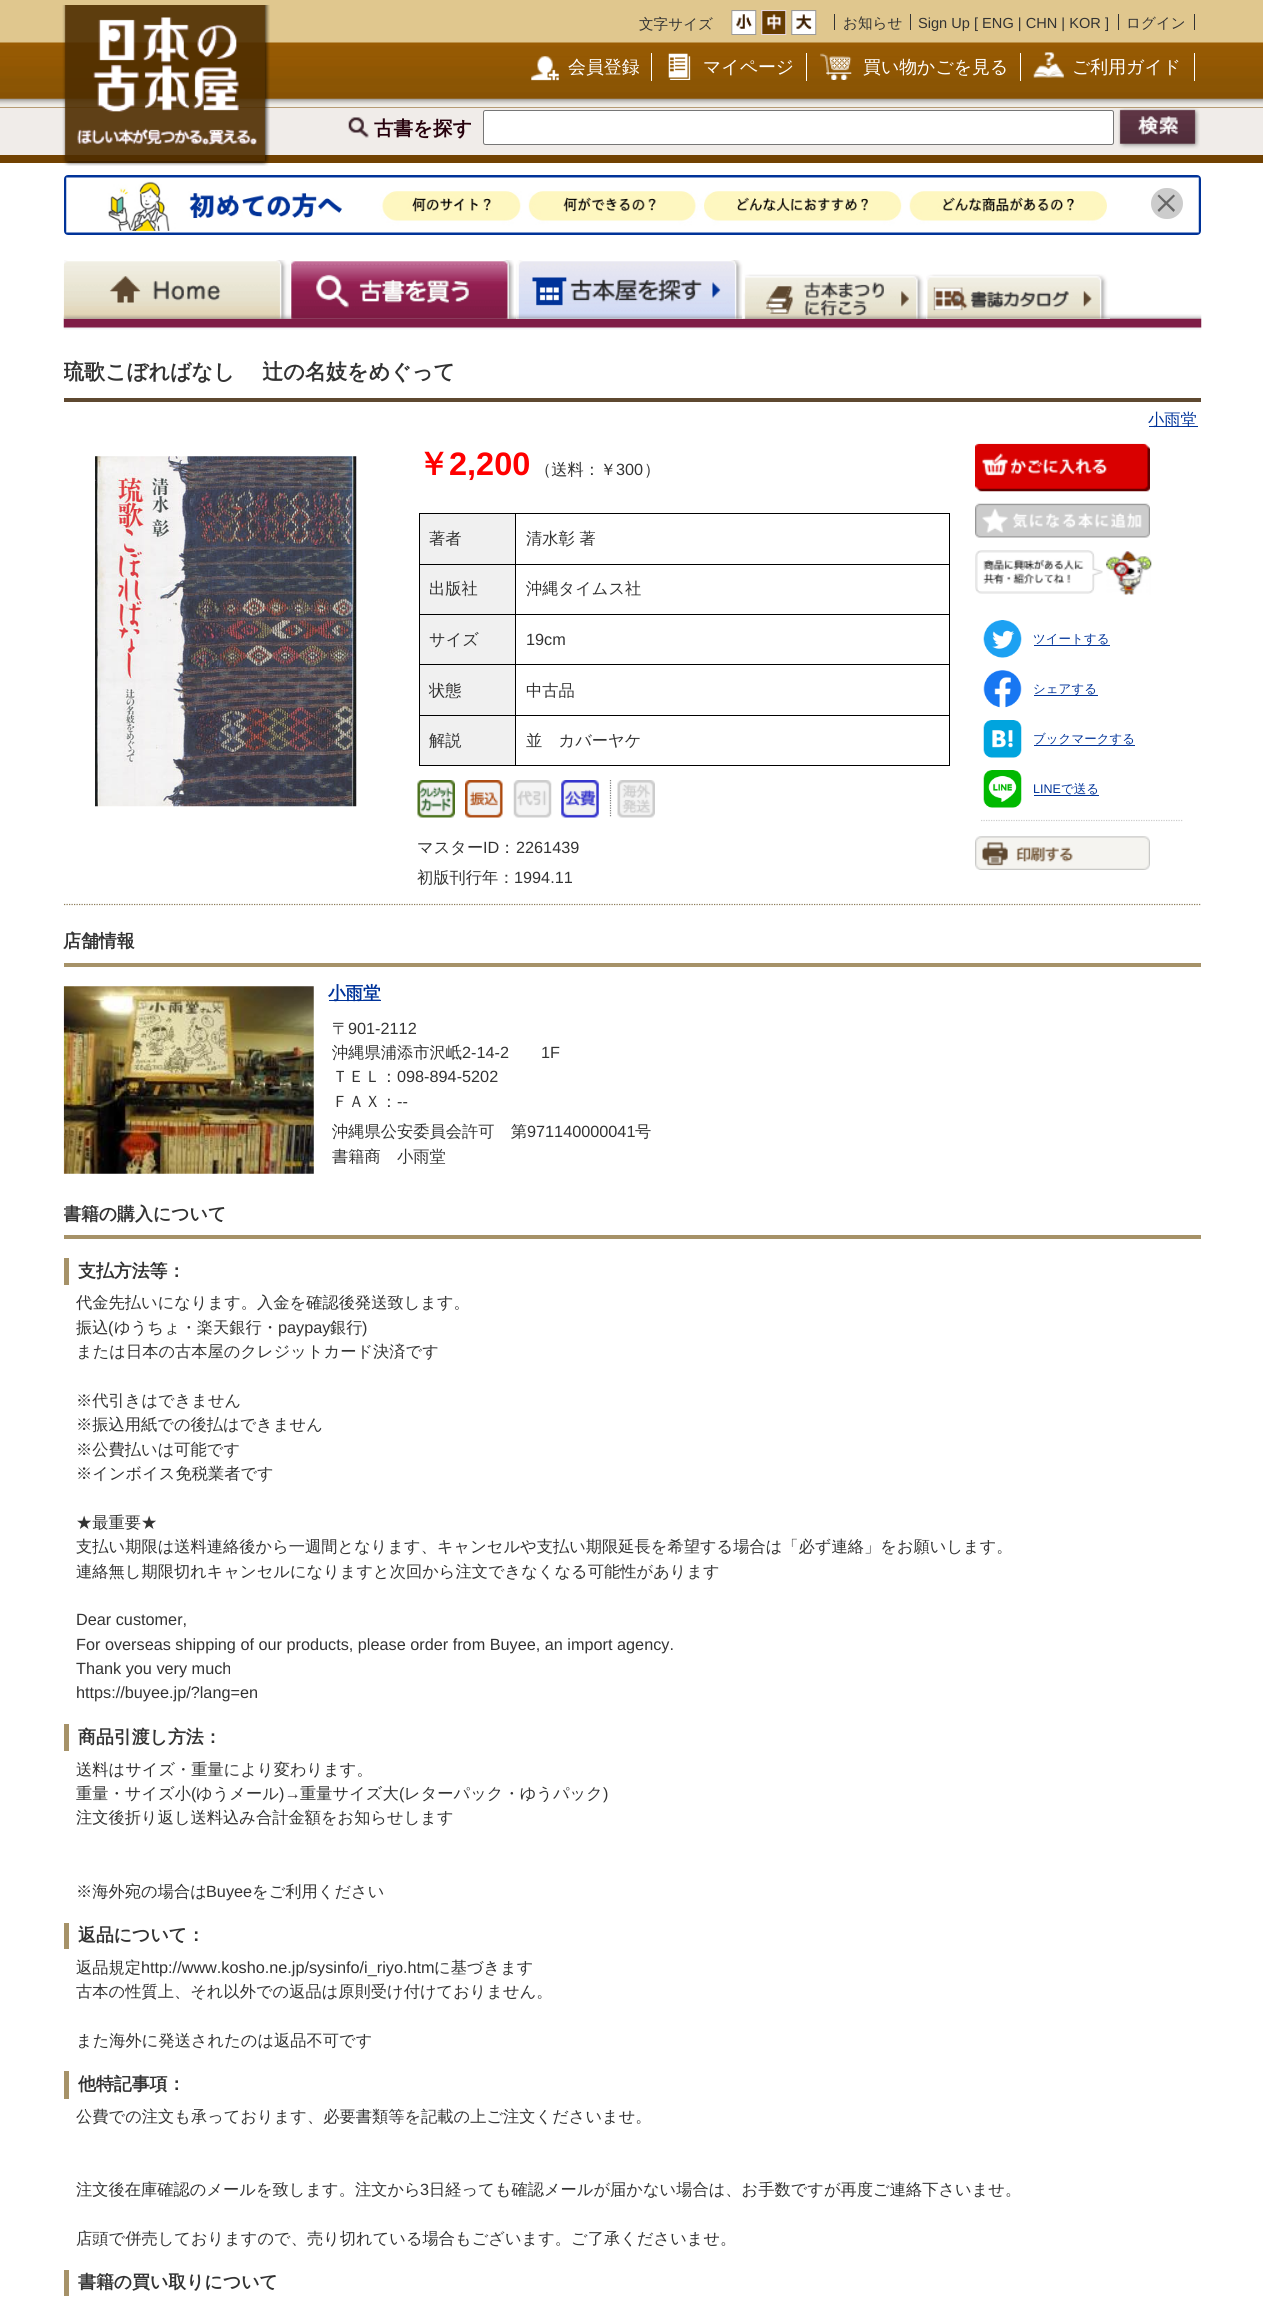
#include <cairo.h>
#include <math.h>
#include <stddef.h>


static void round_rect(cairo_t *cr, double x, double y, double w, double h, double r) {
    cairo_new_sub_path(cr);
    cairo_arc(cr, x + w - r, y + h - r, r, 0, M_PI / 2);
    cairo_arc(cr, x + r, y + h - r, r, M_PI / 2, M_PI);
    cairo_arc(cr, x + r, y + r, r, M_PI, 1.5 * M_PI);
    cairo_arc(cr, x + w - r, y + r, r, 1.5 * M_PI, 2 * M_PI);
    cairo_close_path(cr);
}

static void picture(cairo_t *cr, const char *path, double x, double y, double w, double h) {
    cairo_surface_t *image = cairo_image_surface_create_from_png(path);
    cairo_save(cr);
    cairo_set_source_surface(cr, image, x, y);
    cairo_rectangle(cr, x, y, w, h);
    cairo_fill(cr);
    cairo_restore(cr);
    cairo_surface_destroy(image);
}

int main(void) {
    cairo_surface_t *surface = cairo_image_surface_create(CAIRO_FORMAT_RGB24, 1263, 2302);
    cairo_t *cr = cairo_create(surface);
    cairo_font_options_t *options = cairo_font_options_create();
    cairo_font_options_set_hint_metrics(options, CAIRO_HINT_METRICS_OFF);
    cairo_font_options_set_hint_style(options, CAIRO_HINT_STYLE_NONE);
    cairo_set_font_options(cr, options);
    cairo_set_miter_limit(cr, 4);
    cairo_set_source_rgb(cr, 1, 1, 1);
    cairo_paint(cr);
    cairo_set_source_rgb(cr, 0.878, 0.78, 0.557);
    cairo_rectangle(cr, 0, 0, 1263, 43);
    cairo_fill(cr);
    cairo_set_source_rgb(cr, 0.49, 0.286, 0.004);
    cairo_rectangle(cr, 0, 107, 1263, 1);
    cairo_fill(cr);
    picture(cr, "img5.png", 0, 42, 1263, 66);
    cairo_set_source_rgb(cr, 0.941, 0.925, 0.914);
    cairo_rectangle(cr, 0, 108, 1263, 47);
    cairo_fill(cr);
    cairo_set_source_rgb(cr, 0.443, 0.255, 0.004);
    cairo_rectangle(cr, 0, 155, 1263, 8);
    cairo_fill(cr);
    picture(cr, "img1.png", 62, 5, 208, 161);
    cairo_select_font_face(cr, "WenQuanYi Zen Hei Medium", CAIRO_FONT_SLANT_NORMAL, CAIRO_FONT_WEIGHT_NORMAL);
    cairo_set_font_size(cr, 14.6);
    cairo_set_source_rgb(cr, 0.2, 0.2, 0.2);
    cairo_move_to(cr, 639, 29);
    cairo_show_text(cr, "文字サイズ");
    picture(cr, "img2.png", 731, 10, 26, 25);
    picture(cr, "img3.png", 761, 10, 26, 25);
    picture(cr, "img4.png", 791, 10, 26, 25);
    cairo_rectangle(cr, 834, 14, 1, 16);
    cairo_fill(cr);
    cairo_move_to(cr, 843, 28);
    cairo_show_text(cr, "お知らせ");
    cairo_rectangle(cr, 910, 14, 1, 16);
    cairo_fill(cr);
    cairo_select_font_face(cr, "Liberation Sans", CAIRO_FONT_SLANT_NORMAL, CAIRO_FONT_WEIGHT_NORMAL);
    cairo_move_to(cr, 918, 28);
    cairo_show_text(cr, "Sign Up [ ENG | CHN | KOR ]");
    cairo_rectangle(cr, 1194, 14, 1, 16);
    cairo_fill(cr);
    cairo_rectangle(cr, 1118, 14, 1, 16);
    cairo_fill(cr);
    cairo_select_font_face(cr, "WenQuanYi Zen Hei Medium", CAIRO_FONT_SLANT_NORMAL, CAIRO_FONT_WEIGHT_NORMAL);
    cairo_move_to(cr, 1126, 28);
    cairo_show_text(cr, "ログイン");
    picture(cr, "img6.png", 531, 56, 28, 25);
    cairo_set_source_rgb(cr, 1, 1, 1);
    cairo_rectangle(cr, 651, 53, 1, 28);
    cairo_fill(cr);
    cairo_set_font_size(cr, 17.9);
    cairo_move_to(cr, 568, 73);
    cairo_show_text(cr, "会員登録");
    picture(cr, "img7.png", 668, 53, 23, 27);
    cairo_rectangle(cr, 806, 53, 1, 28);
    cairo_fill(cr);
    cairo_move_to(cr, 703, 73);
    cairo_show_text(cr, "マイページ");
    picture(cr, "img8.png", 820, 53, 32, 27);
    cairo_rectangle(cr, 1020, 53, 1, 28);
    cairo_fill(cr);
    cairo_move_to(cr, 863, 73);
    cairo_show_text(cr, "買い物かごを見る");
    picture(cr, "img9.png", 1033, 52, 31, 26);
    cairo_rectangle(cr, 1194, 53, 1, 28);
    cairo_fill(cr);
    cairo_move_to(cr, 1072, 73);
    cairo_show_text(cr, "ご利用ガイド");
    picture(cr, "img10.png", 348, 117, 21, 21);
    cairo_select_font_face(cr, "WenQuanYi Zen Hei", CAIRO_FONT_SLANT_NORMAL, CAIRO_FONT_WEIGHT_BOLD);
    cairo_set_font_size(cr, 19.5);
    cairo_set_source_rgb(cr, 0.149, 0, 0.047);
    cairo_move_to(cr, 374, 135);
    cairo_show_text(cr, "古書を探す");
    cairo_set_source_rgb(cr, 1, 1, 1);
    round_rect(cr, 483.5, 110.5, 630, 34, 2);
    cairo_fill_preserve(cr);
    cairo_set_source_rgb(cr, 0.463, 0.463, 0.463);
    cairo_set_line_width(cr, 1);
    cairo_stroke(cr);
    picture(cr, "img11.png", 1118, 108, 82, 41);
    round_rect(cr, 65.5, 176.5, 1134, 57, 2.5);
    cairo_set_source_rgb(cr, 0, 0.2, 0.6);
    cairo_set_line_width(cr, 3);
    cairo_stroke(cr);
    picture(cr, "img12.png", 66, 177, 1133, 56);
    cairo_set_source_rgb(cr, 0.8, 0.8, 0.8);
    round_rect(cr, 1151, 188, 32, 31, 15.5);
    cairo_fill(cr);
    cairo_set_source_rgb(cr, 0.4, 0.4, 0.4);
    cairo_new_path(cr);
    cairo_move_to(cr, 1159, 194.5);
    cairo_line_to(cr, 1175, 210);
    cairo_line_to(cr, 1173.5, 212);
    cairo_line_to(cr, 1157.5, 196);
    cairo_close_path(cr);
    cairo_fill(cr);
    cairo_new_path(cr);
    cairo_move_to(cr, 1173.5, 194.5);
    cairo_line_to(cr, 1175, 196);
    cairo_line_to(cr, 1159, 212);
    cairo_line_to(cr, 1157.5, 210);
    cairo_close_path(cr);
    cairo_fill(cr);
    picture(cr, "img13.png", 63, 314, 1139, 16);
    picture(cr, "img14.png", 63, 260, 227, 59);
    picture(cr, "img15.png", 290, 260, 226, 59);
    cairo_set_source_rgb(cr, 1, 1, 1);
    cairo_rectangle(cr, 516, 314, 227, 5);
    cairo_fill(cr);
    picture(cr, "img16.png", 516, 260, 227, 59);
    picture(cr, "img17.png", 742, 274, 184, 45);
    cairo_rectangle(cr, 926, 314, 184, 5);
    cairo_fill(cr);
    picture(cr, "img18.png", 926, 274, 184, 45);
    cairo_set_source_rgb(cr, 0.369, 0.282, 0.188);
    cairo_rectangle(cr, 64, 398, 1137, 4);
    cairo_fill(cr);
    cairo_save(cr);
    cairo_rectangle(cr, 64, 344, 1137, 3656);
    cairo_clip(cr);
    cairo_set_font_size(cr, 21.1);
    cairo_set_source_rgb(cr, 0.2, 0.2, 0.2);
    cairo_move_to(cr, 63, 379);
    cairo_show_text(cr, "琉歌こぼればなし　 辻の名妓をめぐって");
    cairo_restore(cr);
    cairo_set_source_rgb(cr, 0, 0.2, 0.6);
    cairo_rectangle(cr, 1149, 426, 49, 1);
    cairo_fill(cr);
    cairo_select_font_face(cr, "WenQuanYi Zen Hei Medium", CAIRO_FONT_SLANT_NORMAL, CAIRO_FONT_WEIGHT_NORMAL);
    cairo_set_font_size(cr, 16.25);
    cairo_move_to(cr, 1148, 425);
    cairo_show_text(cr, "小雨堂");
    picture(cr, "img19.png", 95, 456, 262, 351);
    cairo_select_font_face(cr, "WenQuanYi Zen Hei", CAIRO_FONT_SLANT_NORMAL, CAIRO_FONT_WEIGHT_BOLD);
    cairo_set_font_size(cr, 32.5);
    cairo_set_source_rgb(cr, 1, 0, 0);
    cairo_move_to(cr, 417, 475);
    cairo_show_text(cr, "￥");
    cairo_select_font_face(cr, "Liberation Sans", CAIRO_FONT_SLANT_NORMAL, CAIRO_FONT_WEIGHT_BOLD);
    cairo_move_to(cr, 449, 475);
    cairo_show_text(cr, "2,200");
    cairo_select_font_face(cr, "WenQuanYi Zen Hei Medium", CAIRO_FONT_SLANT_NORMAL, CAIRO_FONT_WEIGHT_NORMAL);
    cairo_set_font_size(cr, 16.25);
    cairo_set_source_rgb(cr, 0.2, 0.2, 0.2);
    cairo_move_to(cr, 535, 475);
    cairo_show_text(cr, "（送料：￥");
    cairo_select_font_face(cr, "Liberation Sans", CAIRO_FONT_SLANT_NORMAL, CAIRO_FONT_WEIGHT_NORMAL);
    cairo_move_to(cr, 616, 475);
    cairo_show_text(cr, "300");
    cairo_select_font_face(cr, "WenQuanYi Zen Hei Medium", CAIRO_FONT_SLANT_NORMAL, CAIRO_FONT_WEIGHT_NORMAL);
    cairo_move_to(cr, 644, 475);
    cairo_show_text(cr, "）");
    cairo_set_source_rgb(cr, 0.941, 0.941, 0.941);
    cairo_rectangle(cr, 420, 514, 95, 50);
    cairo_fill(cr);
    cairo_set_source_rgb(cr, 0, 0, 0);
    cairo_rectangle(cr, 419, 513, 96, 1);
    cairo_fill(cr);
    cairo_rectangle(cr, 419, 513, 1, 52);
    cairo_fill(cr);
    cairo_set_source_rgb(cr, 0.2, 0.2, 0.2);
    cairo_move_to(cr, 429, 544);
    cairo_show_text(cr, "著者");
    cairo_rectangle(cr, 515.5, 513.5, 434, 51);
    cairo_set_source_rgb(cr, 0, 0, 0);
    cairo_set_line_width(cr, 1);
    cairo_stroke(cr);
    cairo_set_source_rgb(cr, 0.2, 0.2, 0.2);
    cairo_move_to(cr, 526, 544);
    cairo_show_text(cr, "清水彰 著");
    cairo_set_source_rgb(cr, 0.941, 0.941, 0.941);
    cairo_rectangle(cr, 420, 565, 95, 49);
    cairo_fill(cr);
    cairo_set_source_rgb(cr, 0, 0, 0);
    cairo_rectangle(cr, 419, 564, 96, 1);
    cairo_fill(cr);
    cairo_rectangle(cr, 419, 564, 1, 51);
    cairo_fill(cr);
    cairo_set_source_rgb(cr, 0.2, 0.2, 0.2);
    cairo_move_to(cr, 429, 594);
    cairo_show_text(cr, "出版社");
    cairo_rectangle(cr, 515.5, 564.5, 434, 50);
    cairo_set_source_rgb(cr, 0, 0, 0);
    cairo_stroke(cr);
    cairo_set_source_rgb(cr, 0.2, 0.2, 0.2);
    cairo_move_to(cr, 526, 594);
    cairo_show_text(cr, "沖縄タイムス社");
    cairo_set_source_rgb(cr, 0.941, 0.941, 0.941);
    cairo_rectangle(cr, 420, 615, 95, 49);
    cairo_fill(cr);
    cairo_set_source_rgb(cr, 0, 0, 0);
    cairo_rectangle(cr, 419, 614, 96, 1);
    cairo_fill(cr);
    cairo_rectangle(cr, 419, 614, 1, 51);
    cairo_fill(cr);
    cairo_set_source_rgb(cr, 0.2, 0.2, 0.2);
    cairo_move_to(cr, 429, 645);
    cairo_show_text(cr, "サイズ");
    cairo_rectangle(cr, 515.5, 614.5, 434, 50);
    cairo_set_source_rgb(cr, 0, 0, 0);
    cairo_stroke(cr);
    cairo_select_font_face(cr, "Liberation Sans", CAIRO_FONT_SLANT_NORMAL, CAIRO_FONT_WEIGHT_NORMAL);
    cairo_set_source_rgb(cr, 0.2, 0.2, 0.2);
    cairo_move_to(cr, 526, 645);
    cairo_show_text(cr, "19cm");
    cairo_set_source_rgb(cr, 0.941, 0.941, 0.941);
    cairo_rectangle(cr, 420, 665, 95, 50);
    cairo_fill(cr);
    cairo_set_source_rgb(cr, 0, 0, 0);
    cairo_rectangle(cr, 419, 664, 96, 1);
    cairo_fill(cr);
    cairo_rectangle(cr, 419, 664, 1, 52);
    cairo_fill(cr);
    cairo_select_font_face(cr, "WenQuanYi Zen Hei Medium", CAIRO_FONT_SLANT_NORMAL, CAIRO_FONT_WEIGHT_NORMAL);
    cairo_set_source_rgb(cr, 0.2, 0.2, 0.2);
    cairo_move_to(cr, 429, 696);
    cairo_show_text(cr, "状態");
    cairo_rectangle(cr, 515.5, 664.5, 434, 51);
    cairo_set_source_rgb(cr, 0, 0, 0);
    cairo_stroke(cr);
    cairo_set_source_rgb(cr, 0.2, 0.2, 0.2);
    cairo_move_to(cr, 526, 696);
    cairo_show_text(cr, "中古品");
    cairo_set_source_rgb(cr, 0.941, 0.941, 0.941);
    cairo_rectangle(cr, 420, 716, 95, 49);
    cairo_fill(cr);
    cairo_set_source_rgb(cr, 0, 0, 0);
    cairo_rectangle(cr, 419, 715, 96, 1);
    cairo_fill(cr);
    cairo_rectangle(cr, 419, 765, 96, 1);
    cairo_fill(cr);
    cairo_rectangle(cr, 419, 715, 1, 51);
    cairo_fill(cr);
    cairo_set_source_rgb(cr, 0.2, 0.2, 0.2);
    cairo_move_to(cr, 429, 746);
    cairo_show_text(cr, "解説");
    cairo_rectangle(cr, 515.5, 715.5, 434, 50);
    cairo_set_source_rgb(cr, 0, 0, 0);
    cairo_stroke(cr);
    cairo_set_source_rgb(cr, 0.2, 0.2, 0.2);
    cairo_move_to(cr, 526, 746);
    cairo_show_text(cr, "並　カバーヤケ");
    picture(cr, "img20.png", 417, 780, 38, 38);
    picture(cr, "img21.png", 465, 780, 38, 38);
    picture(cr, "img22.png", 513, 780, 39, 38);
    picture(cr, "img23.png", 561, 780, 38, 38);
    cairo_new_path(cr);
    cairo_move_to(cr, 610.5, 780);
    cairo_line_to(cr, 610.5, 817.5);
    cairo_set_source_rgb(cr, 0.486, 0.494, 0.494);
    cairo_set_line_width(cr, 1.2);
    cairo_set_dash(cr, (double[]){1.25, 1.25}, 2, 0);
    cairo_stroke(cr);
    picture(cr, "img24.png", 617, 780, 38, 38);
    cairo_set_source_rgb(cr, 0.2, 0.2, 0.2);
    cairo_move_to(cr, 417, 853);
    cairo_show_text(cr, "マスター");
    cairo_select_font_face(cr, "Liberation Sans", CAIRO_FONT_SLANT_NORMAL, CAIRO_FONT_WEIGHT_NORMAL);
    cairo_move_to(cr, 483, 853);
    cairo_show_text(cr, "ID");
    cairo_select_font_face(cr, "WenQuanYi Zen Hei Medium", CAIRO_FONT_SLANT_NORMAL, CAIRO_FONT_WEIGHT_NORMAL);
    cairo_move_to(cr, 499, 853);
    cairo_show_text(cr, "：");
    cairo_select_font_face(cr, "Liberation Sans", CAIRO_FONT_SLANT_NORMAL, CAIRO_FONT_WEIGHT_NORMAL);
    cairo_move_to(cr, 516, 853);
    cairo_show_text(cr, "2261439");
    cairo_select_font_face(cr, "WenQuanYi Zen Hei Medium", CAIRO_FONT_SLANT_NORMAL, CAIRO_FONT_WEIGHT_NORMAL);
    cairo_move_to(cr, 417, 883);
    cairo_show_text(cr, "初版刊行年：");
    cairo_select_font_face(cr, "Liberation Sans", CAIRO_FONT_SLANT_NORMAL, CAIRO_FONT_WEIGHT_NORMAL);
    cairo_move_to(cr, 514, 883);
    cairo_show_text(cr, "1994.11");
    picture(cr, "img25.png", 975, 443, 175, 49);
    picture(cr, "img26.png", 975, 503, 175, 35);
    picture(cr, "img27.png", 975, 550, 177, 45);
    cairo_new_path(cr);
    cairo_move_to(cr, 981, 820.5);
    cairo_line_to(cr, 1182.5, 820.5);
    cairo_set_source_rgb(cr, 0.8, 0.8, 0.8);
    cairo_stroke(cr);
    picture(cr, "img28.png", 983, 620, 39, 38);
    cairo_set_source_rgb(cr, 0, 0.2, 0.6);
    cairo_rectangle(cr, 1034, 645, 76, 1);
    cairo_fill(cr);
    cairo_select_font_face(cr, "WenQuanYi Zen Hei Medium", CAIRO_FONT_SLANT_NORMAL, CAIRO_FONT_WEIGHT_NORMAL);
    cairo_set_font_size(cr, 12.5);
    cairo_move_to(cr, 1033, 643);
    cairo_show_text(cr, "ツイートする");
    picture(cr, "img29.png", 983, 670, 39, 38);
    cairo_rectangle(cr, 1034, 695, 64, 1);
    cairo_fill(cr);
    cairo_move_to(cr, 1033, 693);
    cairo_show_text(cr, "シェアする");
    picture(cr, "img30.png", 983, 720, 39, 38);
    cairo_rectangle(cr, 1034, 745, 101, 1);
    cairo_fill(cr);
    cairo_move_to(cr, 1033, 743);
    cairo_show_text(cr, "ブックマークする");
    picture(cr, "img31.png", 983, 770, 39, 38);
    cairo_select_font_face(cr, "Liberation Sans", CAIRO_FONT_SLANT_NORMAL, CAIRO_FONT_WEIGHT_NORMAL);
    cairo_move_to(cr, 1033, 793);
    cairo_show_text(cr, "LINE");
    cairo_rectangle(cr, 1034, 795, 65, 1);
    cairo_fill(cr);
    cairo_select_font_face(cr, "WenQuanYi Zen Hei Medium", CAIRO_FONT_SLANT_NORMAL, CAIRO_FONT_WEIGHT_NORMAL);
    cairo_move_to(cr, 1061, 793);
    cairo_show_text(cr, "で送る");
    picture(cr, "img32.png", 975, 836, 175, 34);
    cairo_new_path(cr);
    cairo_move_to(cr, 64, 904.5);
    cairo_line_to(cr, 1201, 904.5);
    cairo_set_source_rgb(cr, 0.549, 0.486, 0.349);
    cairo_stroke(cr);
    cairo_set_source_rgb(cr, 0.651, 0.573, 0.408);
    cairo_rectangle(cr, 64, 963, 1137, 4);
    cairo_fill(cr);
    cairo_select_font_face(cr, "WenQuanYi Zen Hei", CAIRO_FONT_SLANT_NORMAL, CAIRO_FONT_WEIGHT_BOLD);
    cairo_set_font_size(cr, 17.9);
    cairo_set_source_rgb(cr, 0.2, 0.2, 0.2);
    cairo_move_to(cr, 63, 947);
    cairo_show_text(cr, "店舗情報");
    picture(cr, "img33.png", 63, 986, 251, 188);
    cairo_set_source_rgb(cr, 0, 0.2, 0.6);
    cairo_rectangle(cr, 329, 1000, 52, 1);
    cairo_fill(cr);
    cairo_set_font_size(cr, 17.5);
    cairo_move_to(cr, 328, 999);
    cairo_show_text(cr, "小雨堂");
    cairo_select_font_face(cr, "WenQuanYi Zen Hei Medium", CAIRO_FONT_SLANT_NORMAL, CAIRO_FONT_WEIGHT_NORMAL);
    cairo_set_font_size(cr, 16.25);
    cairo_set_source_rgb(cr, 0.2, 0.2, 0.2);
    cairo_move_to(cr, 332, 1034);
    cairo_show_text(cr, "〒");
    cairo_select_font_face(cr, "Liberation Sans", CAIRO_FONT_SLANT_NORMAL, CAIRO_FONT_WEIGHT_NORMAL);
    cairo_move_to(cr, 348, 1034);
    cairo_show_text(cr, "901-2112");
    cairo_select_font_face(cr, "WenQuanYi Zen Hei Medium", CAIRO_FONT_SLANT_NORMAL, CAIRO_FONT_WEIGHT_NORMAL);
    cairo_move_to(cr, 332, 1058);
    cairo_show_text(cr, "沖縄県浦添市沢岻");
    cairo_select_font_face(cr, "Liberation Sans", CAIRO_FONT_SLANT_NORMAL, CAIRO_FONT_WEIGHT_NORMAL);
    cairo_move_to(cr, 462, 1058);
    cairo_show_text(cr, "2-14-2");
    cairo_move_to(cr, 541, 1058);
    cairo_show_text(cr, "1F");
    cairo_select_font_face(cr, "WenQuanYi Zen Hei Medium", CAIRO_FONT_SLANT_NORMAL, CAIRO_FONT_WEIGHT_NORMAL);
    cairo_move_to(cr, 332, 1082);
    cairo_show_text(cr, "ＴＥＬ：");
    cairo_select_font_face(cr, "Liberation Sans", CAIRO_FONT_SLANT_NORMAL, CAIRO_FONT_WEIGHT_NORMAL);
    cairo_move_to(cr, 397, 1082);
    cairo_show_text(cr, "098-894-5202");
    cairo_select_font_face(cr, "WenQuanYi Zen Hei Medium", CAIRO_FONT_SLANT_NORMAL, CAIRO_FONT_WEIGHT_NORMAL);
    cairo_move_to(cr, 332, 1107);
    cairo_show_text(cr, "ＦＡＸ：");
    cairo_select_font_face(cr, "Liberation Sans", CAIRO_FONT_SLANT_NORMAL, CAIRO_FONT_WEIGHT_NORMAL);
    cairo_move_to(cr, 397, 1107);
    cairo_show_text(cr, "--");
    cairo_select_font_face(cr, "WenQuanYi Zen Hei Medium", CAIRO_FONT_SLANT_NORMAL, CAIRO_FONT_WEIGHT_NORMAL);
    cairo_move_to(cr, 332, 1137);
    cairo_show_text(cr, "沖縄県公安委員会許可　第");
    cairo_select_font_face(cr, "Liberation Sans", CAIRO_FONT_SLANT_NORMAL, CAIRO_FONT_WEIGHT_NORMAL);
    cairo_move_to(cr, 527, 1137);
    cairo_show_text(cr, "971140000041");
    cairo_select_font_face(cr, "WenQuanYi Zen Hei Medium", CAIRO_FONT_SLANT_NORMAL, CAIRO_FONT_WEIGHT_NORMAL);
    cairo_move_to(cr, 635, 1137);
    cairo_show_text(cr, "号");
    cairo_move_to(cr, 332, 1162);
    cairo_show_text(cr, "書籍商　小雨堂");
    cairo_set_source_rgb(cr, 0.651, 0.573, 0.408);
    cairo_rectangle(cr, 64, 1235, 1137, 4);
    cairo_fill(cr);
    cairo_save(cr);
    cairo_rectangle(cr, 64, 344, 1137, 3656);
    cairo_clip(cr);
    cairo_select_font_face(cr, "WenQuanYi Zen Hei", CAIRO_FONT_SLANT_NORMAL, CAIRO_FONT_WEIGHT_BOLD);
    cairo_set_font_size(cr, 17.9);
    cairo_set_source_rgb(cr, 0.2, 0.2, 0.2);
    cairo_move_to(cr, 63, 1220);
    cairo_show_text(cr, "書籍の購入について");
    cairo_restore(cr);
    cairo_rectangle(cr, 64, 1258, 5, 27);
    cairo_fill(cr);
    cairo_select_font_face(cr, "WenQuanYi Zen Hei", CAIRO_FONT_SLANT_NORMAL, CAIRO_FONT_WEIGHT_BOLD);
    cairo_set_font_size(cr, 17.9);
    cairo_set_source_rgb(cr, 0.2, 0.2, 0.2);
    cairo_move_to(cr, 78, 1277);
    cairo_show_text(cr, "支払方法等：");
    cairo_select_font_face(cr, "WenQuanYi Zen Hei Medium", CAIRO_FONT_SLANT_NORMAL, CAIRO_FONT_WEIGHT_NORMAL);
    cairo_set_font_size(cr, 16.25);
    cairo_move_to(cr, 76, 1308);
    cairo_show_text(cr, "代金先払いになります。入金を確認後発送致します。");
    cairo_move_to(cr, 76, 1333);
    cairo_show_text(cr, "振込");
    cairo_select_font_face(cr, "Liberation Sans", CAIRO_FONT_SLANT_NORMAL, CAIRO_FONT_WEIGHT_NORMAL);
    cairo_move_to(cr, 108, 1333);
    cairo_show_text(cr, "(");
    cairo_select_font_face(cr, "WenQuanYi Zen Hei Medium", CAIRO_FONT_SLANT_NORMAL, CAIRO_FONT_WEIGHT_NORMAL);
    cairo_move_to(cr, 114, 1333);
    cairo_show_text(cr, "ゆうちょ・楽天銀行・");
    cairo_select_font_face(cr, "Liberation Sans", CAIRO_FONT_SLANT_NORMAL, CAIRO_FONT_WEIGHT_NORMAL);
    cairo_move_to(cr, 278, 1333);
    cairo_show_text(cr, "paypay");
    cairo_select_font_face(cr, "WenQuanYi Zen Hei Medium", CAIRO_FONT_SLANT_NORMAL, CAIRO_FONT_WEIGHT_NORMAL);
    cairo_move_to(cr, 330, 1333);
    cairo_show_text(cr, "銀行");
    cairo_select_font_face(cr, "Liberation Sans", CAIRO_FONT_SLANT_NORMAL, CAIRO_FONT_WEIGHT_NORMAL);
    cairo_move_to(cr, 362, 1333);
    cairo_show_text(cr, ")");
    cairo_select_font_face(cr, "WenQuanYi Zen Hei Medium", CAIRO_FONT_SLANT_NORMAL, CAIRO_FONT_WEIGHT_NORMAL);
    cairo_move_to(cr, 76, 1357);
    cairo_show_text(cr, "または日本の古本屋のクレジットカード決済です");
    cairo_move_to(cr, 76, 1406);
    cairo_show_text(cr, "※代引きはできません");
    cairo_move_to(cr, 76, 1430);
    cairo_show_text(cr, "※振込用紙での後払はできません");
    cairo_move_to(cr, 76, 1455);
    cairo_show_text(cr, "※公費払いは可能です");
    cairo_move_to(cr, 76, 1479);
    cairo_show_text(cr, "※インボイス免税業者です");
    cairo_move_to(cr, 76, 1528);
    cairo_show_text(cr, "★最重要★");
    cairo_move_to(cr, 76, 1552);
    cairo_show_text(cr, "支払い期限は送料連絡後から一週間となります、キャンセルや支払い期限延長を希望する場合は「必ず連絡」をお願いします。");
    cairo_move_to(cr, 76, 1577);
    cairo_show_text(cr, "連絡無し期限切れキャンセルになりますと次回から注文できなくなる可能性があります");
    cairo_select_font_face(cr, "Liberation Sans", CAIRO_FONT_SLANT_NORMAL, CAIRO_FONT_WEIGHT_NORMAL);
    cairo_move_to(cr, 76, 1625);
    cairo_show_text(cr, "Dear customer,");
    cairo_move_to(cr, 76, 1650);
    cairo_show_text(cr, "For overseas shipping of our products, please order from Buyee, an import agency.");
    cairo_move_to(cr, 76, 1674);
    cairo_show_text(cr, "Thank you very much");
    cairo_move_to(cr, 76, 1698);
    cairo_show_text(cr, "https://buyee.jp/?lang=en");
    cairo_set_source_rgb(cr, 0.651, 0.573, 0.408);
    cairo_rectangle(cr, 64, 1724, 5, 27);
    cairo_fill(cr);
    cairo_select_font_face(cr, "WenQuanYi Zen Hei", CAIRO_FONT_SLANT_NORMAL, CAIRO_FONT_WEIGHT_BOLD);
    cairo_set_font_size(cr, 17.9);
    cairo_set_source_rgb(cr, 0.2, 0.2, 0.2);
    cairo_move_to(cr, 78, 1743);
    cairo_show_text(cr, "商品引渡し方法：");
    cairo_select_font_face(cr, "WenQuanYi Zen Hei Medium", CAIRO_FONT_SLANT_NORMAL, CAIRO_FONT_WEIGHT_NORMAL);
    cairo_set_font_size(cr, 16.25);
    cairo_move_to(cr, 76, 1775);
    cairo_show_text(cr, "送料はサイズ・重量により変わります。");
    cairo_move_to(cr, 76, 1799);
    cairo_show_text(cr, "重量・サイズ小");
    cairo_select_font_face(cr, "Liberation Sans", CAIRO_FONT_SLANT_NORMAL, CAIRO_FONT_WEIGHT_NORMAL);
    cairo_move_to(cr, 191, 1799);
    cairo_show_text(cr, "(");
    cairo_select_font_face(cr, "WenQuanYi Zen Hei Medium", CAIRO_FONT_SLANT_NORMAL, CAIRO_FONT_WEIGHT_NORMAL);
    cairo_move_to(cr, 196, 1799);
    cairo_show_text(cr, "ゆうメール");
    cairo_select_font_face(cr, "Liberation Sans", CAIRO_FONT_SLANT_NORMAL, CAIRO_FONT_WEIGHT_NORMAL);
    cairo_move_to(cr, 279, 1799);
    cairo_show_text(cr, ")→");
    cairo_select_font_face(cr, "WenQuanYi Zen Hei Medium", CAIRO_FONT_SLANT_NORMAL, CAIRO_FONT_WEIGHT_NORMAL);
    cairo_move_to(cr, 300, 1799);
    cairo_show_text(cr, "重量サイズ大");
    cairo_select_font_face(cr, "Liberation Sans", CAIRO_FONT_SLANT_NORMAL, CAIRO_FONT_WEIGHT_NORMAL);
    cairo_move_to(cr, 399, 1799);
    cairo_show_text(cr, "(");
    cairo_select_font_face(cr, "WenQuanYi Zen Hei Medium", CAIRO_FONT_SLANT_NORMAL, CAIRO_FONT_WEIGHT_NORMAL);
    cairo_move_to(cr, 404, 1799);
    cairo_show_text(cr, "レターパック・ゆうパック");
    cairo_select_font_face(cr, "Liberation Sans", CAIRO_FONT_SLANT_NORMAL, CAIRO_FONT_WEIGHT_NORMAL);
    cairo_move_to(cr, 603, 1799);
    cairo_show_text(cr, ")");
    cairo_select_font_face(cr, "WenQuanYi Zen Hei Medium", CAIRO_FONT_SLANT_NORMAL, CAIRO_FONT_WEIGHT_NORMAL);
    cairo_move_to(cr, 76, 1823);
    cairo_show_text(cr, "注文後折り返し送料込み合計金額をお知らせします");
    cairo_move_to(cr, 76, 1897);
    cairo_show_text(cr, "※海外宛の場合は");
    cairo_select_font_face(cr, "Liberation Sans", CAIRO_FONT_SLANT_NORMAL, CAIRO_FONT_WEIGHT_NORMAL);
    cairo_move_to(cr, 206, 1897);
    cairo_show_text(cr, "Buyee");
    cairo_select_font_face(cr, "WenQuanYi Zen Hei Medium", CAIRO_FONT_SLANT_NORMAL, CAIRO_FONT_WEIGHT_NORMAL);
    cairo_move_to(cr, 252, 1897);
    cairo_show_text(cr, "をご利用ください");
    cairo_set_source_rgb(cr, 0.651, 0.573, 0.408);
    cairo_rectangle(cr, 64, 1923, 5, 26);
    cairo_fill(cr);
    cairo_select_font_face(cr, "WenQuanYi Zen Hei", CAIRO_FONT_SLANT_NORMAL, CAIRO_FONT_WEIGHT_BOLD);
    cairo_set_font_size(cr, 17.9);
    cairo_set_source_rgb(cr, 0.2, 0.2, 0.2);
    cairo_move_to(cr, 78, 1941);
    cairo_show_text(cr, "返品について：");
    cairo_select_font_face(cr, "WenQuanYi Zen Hei Medium", CAIRO_FONT_SLANT_NORMAL, CAIRO_FONT_WEIGHT_NORMAL);
    cairo_set_font_size(cr, 16.25);
    cairo_move_to(cr, 76, 1973);
    cairo_show_text(cr, "返品規定");
    cairo_select_font_face(cr, "Liberation Sans", CAIRO_FONT_SLANT_NORMAL, CAIRO_FONT_WEIGHT_NORMAL);
    cairo_move_to(cr, 141, 1973);
    cairo_show_text(cr, "http://www.kosho.ne.jp/sysinfo/i_riyo.htm");
    cairo_select_font_face(cr, "WenQuanYi Zen Hei Medium", CAIRO_FONT_SLANT_NORMAL, CAIRO_FONT_WEIGHT_NORMAL);
    cairo_move_to(cr, 434, 1973);
    cairo_show_text(cr, "に基づきます");
    cairo_move_to(cr, 76, 1997);
    cairo_show_text(cr, "古本の性質上、それ以外での返品は原則受け付けておりません。");
    cairo_move_to(cr, 76, 2046);
    cairo_show_text(cr, "また海外に発送されたのは返品不可です");
    cairo_set_source_rgb(cr, 0.651, 0.573, 0.408);
    cairo_rectangle(cr, 64, 2071, 5, 28);
    cairo_fill(cr);
    cairo_select_font_face(cr, "WenQuanYi Zen Hei", CAIRO_FONT_SLANT_NORMAL, CAIRO_FONT_WEIGHT_BOLD);
    cairo_set_font_size(cr, 17.9);
    cairo_set_source_rgb(cr, 0.2, 0.2, 0.2);
    cairo_move_to(cr, 78, 2090);
    cairo_show_text(cr, "他特記事項：");
    cairo_select_font_face(cr, "WenQuanYi Zen Hei Medium", CAIRO_FONT_SLANT_NORMAL, CAIRO_FONT_WEIGHT_NORMAL);
    cairo_set_font_size(cr, 16.25);
    cairo_move_to(cr, 76, 2122);
    cairo_show_text(cr, "公費での注文も承っております、必要書類等を記載の上ご注文くださいませ。");
    cairo_move_to(cr, 76, 2195);
    cairo_show_text(cr, "注文後在庫確認のメールを致します。注文から");
    cairo_select_font_face(cr, "Liberation Sans", CAIRO_FONT_SLANT_NORMAL, CAIRO_FONT_WEIGHT_NORMAL);
    cairo_move_to(cr, 420, 2195);
    cairo_show_text(cr, "3");
    cairo_select_font_face(cr, "WenQuanYi Zen Hei Medium", CAIRO_FONT_SLANT_NORMAL, CAIRO_FONT_WEIGHT_NORMAL);
    cairo_move_to(cr, 429, 2195);
    cairo_show_text(cr, "日経っても確認メールが届かない場合は、お手数ですが再度ご連絡下さいませ。");
    cairo_move_to(cr, 76, 2244);
    cairo_show_text(cr, "店頭で併売しておりますので、売り切れている場合もございます。ご了承くださいませ。");
    cairo_set_source_rgb(cr, 0.651, 0.573, 0.408);
    cairo_rectangle(cr, 64, 2270, 5, 26);
    cairo_fill(cr);
    cairo_select_font_face(cr, "WenQuanYi Zen Hei", CAIRO_FONT_SLANT_NORMAL, CAIRO_FONT_WEIGHT_BOLD);
    cairo_set_font_size(cr, 17.9);
    cairo_set_source_rgb(cr, 0.2, 0.2, 0.2);
    cairo_move_to(cr, 78, 2288);
    cairo_show_text(cr, "書籍の買い取りについて");
    cairo_surface_write_to_png(surface, "page.png");
    cairo_font_options_destroy(options);
    cairo_destroy(cr);
    cairo_surface_destroy(surface);
    return 0;
}
